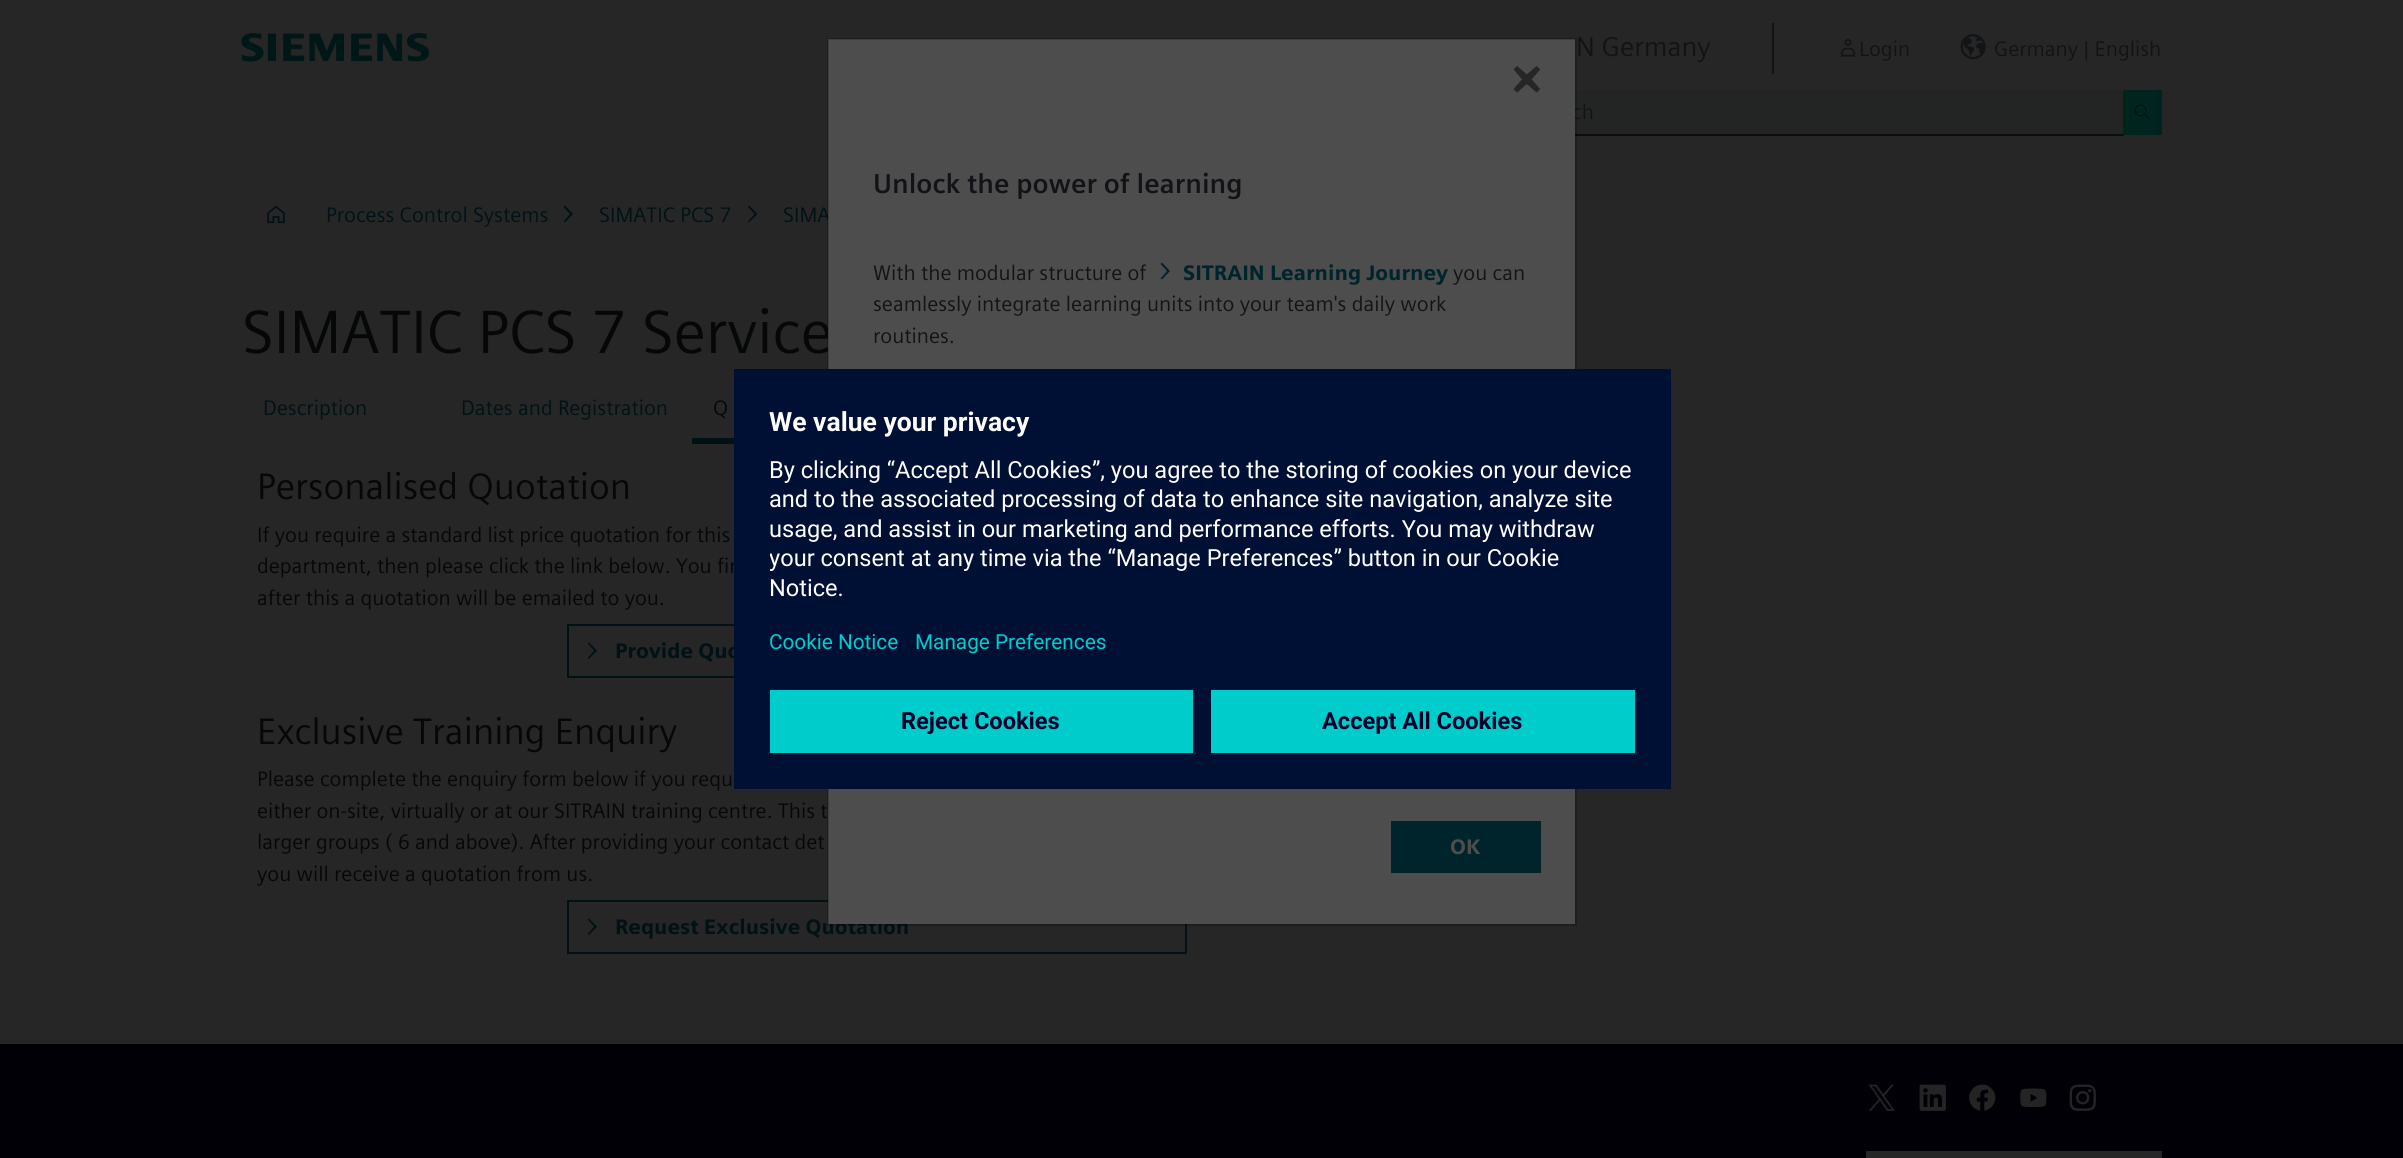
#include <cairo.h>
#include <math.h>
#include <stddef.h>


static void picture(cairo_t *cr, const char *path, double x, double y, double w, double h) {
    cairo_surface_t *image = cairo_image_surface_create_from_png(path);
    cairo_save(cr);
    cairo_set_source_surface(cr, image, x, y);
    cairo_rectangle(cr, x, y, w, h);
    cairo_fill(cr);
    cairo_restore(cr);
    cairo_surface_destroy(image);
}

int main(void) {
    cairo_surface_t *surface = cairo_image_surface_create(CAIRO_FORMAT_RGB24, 2403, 1158);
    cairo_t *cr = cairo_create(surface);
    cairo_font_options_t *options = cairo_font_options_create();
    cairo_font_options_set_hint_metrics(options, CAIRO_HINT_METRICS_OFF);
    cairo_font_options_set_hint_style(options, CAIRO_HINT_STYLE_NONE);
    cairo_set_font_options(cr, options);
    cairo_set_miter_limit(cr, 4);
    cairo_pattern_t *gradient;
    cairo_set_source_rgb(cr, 0.149, 0.149, 0.149);
    cairo_paint(cr);
    picture(cr, "img1.png", 241, 33, 188, 29);
    cairo_set_source_rgb(cr, 0.071, 0.078, 0.086);
    cairo_rectangle(cr, 1772, 23, 2, 51);
    cairo_fill(cr);
    cairo_select_font_face(cr, "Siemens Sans", CAIRO_FONT_SLANT_NORMAL, CAIRO_FONT_WEIGHT_NORMAL);
    cairo_set_font_size(cr, 27.25);
    cairo_move_to(cr, 1576, 56);
    cairo_show_text(cr, "N Germany");
    picture(cr, "img2.png", 1841, 39, 14, 18);
    cairo_set_font_size(cr, 21);
    cairo_move_to(cr, 1859, 56);
    cairo_show_text(cr, "Login");
    picture(cr, "img3.png", 1960, 34, 26, 26);
    cairo_move_to(cr, 1994, 56);
    cairo_show_text(cr, "Germany | English");
    cairo_set_source_rgb(cr, 0.137, 0.145, 0.145);
    cairo_rectangle(cr, 1575, 90, 548, 44);
    cairo_fill(cr);
    cairo_set_source_rgb(cr, 0.043, 0.043, 0.063);
    cairo_rectangle(cr, 1575, 134, 549, 2);
    cairo_fill(cr);
    cairo_set_source_rgb(cr, 0.071, 0.078, 0.086);
    cairo_move_to(cr, 1572, 119);
    cairo_show_text(cr, "ch");
    gradient = cairo_pattern_create_linear(2123, 113, 2162, 113);
    cairo_pattern_add_color_stop_rgba(gradient, 0, 0, 0.149, 0.11, 1);
    cairo_pattern_add_color_stop_rgba(gradient, 1, 0, 0.137, 0.129, 1);
    cairo_set_source(cr, gradient);
    cairo_pattern_destroy(gradient);
    cairo_rectangle(cr, 2123, 90, 39, 45);
    cairo_fill(cr);
    picture(cr, "img4.png", 2134, 104, 16, 16);
    picture(cr, "img5.png", 267, 205, 18, 19);
    cairo_set_source_rgb(cr, 0, 0.071, 0.086);
    cairo_move_to(cr, 326, 222);
    cairo_show_text(cr, "Process Control Systems");
    cairo_new_path(cr);
    cairo_move_to(cr, 573, 214);
    cairo_line_to(cr, 565, 205.5);
    cairo_line_to(cr, 563.5, 207);
    cairo_line_to(cr, 570, 214);
    cairo_line_to(cr, 563.5, 221.5);
    cairo_line_to(cr, 565, 222.5);
    cairo_close_path(cr);
    cairo_fill(cr);
    cairo_move_to(cr, 599, 222);
    cairo_show_text(cr, "SIMATIC PCS 7");
    cairo_new_path(cr);
    cairo_move_to(cr, 757.5, 214);
    cairo_line_to(cr, 749, 205.5);
    cairo_line_to(cr, 748, 207);
    cairo_line_to(cr, 754.5, 214);
    cairo_line_to(cr, 748, 221.5);
    cairo_line_to(cr, 749, 222.5);
    cairo_close_path(cr);
    cairo_fill(cr);
    cairo_move_to(cr, 783, 222);
    cairo_show_text(cr, "SIMA");
    cairo_set_font_size(cr, 61);
    cairo_set_source_rgb(cr, 0.027, 0.031, 0.035);
    cairo_move_to(cr, 242, 353);
    cairo_show_text(cr, "SIMATIC PCS 7 Service");
    cairo_rectangle(cr, 568, 625, 618, 52);
    cairo_set_source_rgb(cr, 0, 0.071, 0.086);
    cairo_stroke(cr);
    cairo_rectangle(cr, 568, 901, 618, 52);
    cairo_stroke(cr);
    cairo_select_font_face(cr, "Siemens Sans Black", CAIRO_FONT_SLANT_NORMAL, CAIRO_FONT_WEIGHT_NORMAL);
    cairo_set_font_size(cr, 21);
    cairo_move_to(cr, 615, 934);
    cairo_show_text(cr, "Request Exclusive Quotation");
    cairo_set_source_rgb(cr, 0.302, 0.302, 0.302);
    cairo_rectangle(cr, 828, 39, 747, 885);
    cairo_fill(cr);
    cairo_rectangle(cr, 828, 39, 748, 886);
    cairo_set_source_rgba(cr, 0, 0, 0, 0.2);
    cairo_stroke(cr);
    picture(cr, "img6.png", 1513, 66, 28, 27);
    cairo_select_font_face(cr, "Siemens Sans", CAIRO_FONT_SLANT_NORMAL, CAIRO_FONT_WEIGHT_BOLD);
    cairo_set_font_size(cr, 27.25);
    cairo_set_source_rgb(cr, 0.071, 0.078, 0.086);
    cairo_move_to(cr, 873, 193);
    cairo_show_text(cr, "Unlock the power of learning");
    cairo_select_font_face(cr, "Siemens Sans", CAIRO_FONT_SLANT_NORMAL, CAIRO_FONT_WEIGHT_NORMAL);
    cairo_set_font_size(cr, 21);
    cairo_move_to(cr, 873, 280);
    cairo_show_text(cr, "With the modular structure of");
    cairo_set_source_rgb(cr, 0, 0.141, 0.173);
    cairo_new_path(cr);
    cairo_move_to(cr, 1170, 271);
    cairo_line_to(cr, 1162, 262.5);
    cairo_line_to(cr, 1160.5, 264);
    cairo_line_to(cr, 1167, 271);
    cairo_line_to(cr, 1160.5, 278.5);
    cairo_line_to(cr, 1162, 279.5);
    cairo_close_path(cr);
    cairo_fill(cr);
    cairo_select_font_face(cr, "Siemens Sans Black", CAIRO_FONT_SLANT_NORMAL, CAIRO_FONT_WEIGHT_NORMAL);
    cairo_move_to(cr, 1183, 280);
    cairo_show_text(cr, "SITRAIN Learning Journey");
    cairo_select_font_face(cr, "Siemens Sans", CAIRO_FONT_SLANT_NORMAL, CAIRO_FONT_WEIGHT_NORMAL);
    cairo_set_source_rgb(cr, 0.071, 0.078, 0.086);
    cairo_move_to(cr, 1453, 280);
    cairo_show_text(cr, "you can");
    cairo_move_to(cr, 873, 311);
    cairo_show_text(cr, "seamlessly integrate learning units into your team's daily work");
    cairo_move_to(cr, 873, 343);
    cairo_show_text(cr, "routines.");
    cairo_set_source_rgb(cr, 0, 0.141, 0.173);
    cairo_rectangle(cr, 1391, 821, 150, 52);
    cairo_fill(cr);
    cairo_select_font_face(cr, "Siemens Sans Black", CAIRO_FONT_SLANT_NORMAL, CAIRO_FONT_WEIGHT_NORMAL);
    cairo_set_source_rgb(cr, 0.302, 0.302, 0.302);
    cairo_move_to(cr, 1450, 854);
    cairo_show_text(cr, "OK");
    cairo_select_font_face(cr, "Siemens Sans", CAIRO_FONT_SLANT_NORMAL, CAIRO_FONT_WEIGHT_NORMAL);
    cairo_set_source_rgb(cr, 0, 0.071, 0.086);
    cairo_move_to(cr, 263, 415);
    cairo_show_text(cr, "Description");
    cairo_move_to(cr, 461, 415);
    cairo_show_text(cr, "Dates and Registration");
    cairo_rectangle(cr, 692, 438, 42, 6);
    cairo_fill(cr);
    cairo_set_source_rgb(cr, 0.027, 0.031, 0.035);
    cairo_move_to(cr, 713, 415);
    cairo_show_text(cr, "Q");
    cairo_set_font_size(cr, 36.75);
    cairo_move_to(cr, 257, 499);
    cairo_show_text(cr, "Personalised Quotation");
    cairo_set_font_size(cr, 21);
    cairo_move_to(cr, 257, 542);
    cairo_show_text(cr, "If you require a standard list price quotation for this");
    cairo_move_to(cr, 257, 573);
    cairo_show_text(cr, "department, then please click the link below. You fir");
    cairo_move_to(cr, 257, 605);
    cairo_show_text(cr, "after this a quotation will be emailed to you.");
    picture(cr, "img7.png", 587, 642, 11, 17);
    cairo_select_font_face(cr, "Siemens Sans Black", CAIRO_FONT_SLANT_NORMAL, CAIRO_FONT_WEIGHT_NORMAL);
    cairo_set_source_rgb(cr, 0, 0.071, 0.086);
    cairo_move_to(cr, 615, 658);
    cairo_show_text(cr, "Provide Quo");
    cairo_select_font_face(cr, "Siemens Sans", CAIRO_FONT_SLANT_NORMAL, CAIRO_FONT_WEIGHT_NORMAL);
    cairo_set_font_size(cr, 36.75);
    cairo_set_source_rgb(cr, 0.027, 0.031, 0.035);
    cairo_move_to(cr, 257, 744);
    cairo_show_text(cr, "Exclusive Training Enquiry");
    cairo_set_font_size(cr, 21);
    cairo_move_to(cr, 257, 786);
    cairo_show_text(cr, "Please complete the enquiry form below if you requ");
    cairo_move_to(cr, 257, 818);
    cairo_show_text(cr, "either on-site, virtually or at our SITRAIN training centre. This t");
    cairo_move_to(cr, 257, 849);
    cairo_show_text(cr, "larger groups ( 6 and above). After providing your contact det");
    cairo_move_to(cr, 257, 881);
    cairo_show_text(cr, "you will receive a quotation from us.");
    picture(cr, "img7.png", 587, 918, 11, 17);
    cairo_set_source_rgb(cr, 0, 0.063, 0.204);
    cairo_rectangle(cr, 734, 369, 937, 420);
    cairo_fill(cr);
    cairo_select_font_face(cr, "Roboto", CAIRO_FONT_SLANT_NORMAL, CAIRO_FONT_WEIGHT_BOLD);
    cairo_set_font_size(cr, 26.5);
    cairo_set_source_rgb(cr, 1, 1, 1);
    cairo_move_to(cr, 769, 431);
    cairo_show_text(cr, "We value your privacy");
    cairo_select_font_face(cr, "Roboto", CAIRO_FONT_SLANT_NORMAL, CAIRO_FONT_WEIGHT_NORMAL);
    cairo_set_font_size(cr, 23.6);
    cairo_move_to(cr, 769, 478);
    cairo_show_text(cr, "By clicking “Accept All Cookies”, you agree to the storing of cookies on your device");
    cairo_move_to(cr, 769, 507);
    cairo_show_text(cr, "and to the associated processing of data to enhance site navigation, analyze site");
    cairo_move_to(cr, 769, 537);
    cairo_show_text(cr, "usage, and assist in our marketing and performance efforts. You may withdraw");
    cairo_save(cr);
    cairo_rectangle(cr, 770, 449, 865, 160);
    cairo_clip(cr);
    cairo_move_to(cr, 769, 566);
    cairo_show_text(cr, "your consent at any time via the “Manage Preferences” button in our Cookie");
    cairo_restore(cr);
    cairo_move_to(cr, 769, 596);
    cairo_show_text(cr, "Notice.");
    cairo_set_font_size(cr, 20.75);
    cairo_set_source_rgb(cr, 0, 0.8, 0.8);
    cairo_move_to(cr, 769, 649);
    cairo_show_text(cr, "Cookie Notice");
    cairo_move_to(cr, 915, 649);
    cairo_show_text(cr, "Manage Preferences");
    cairo_rectangle(cr, 770, 690, 423, 63);
    cairo_fill(cr);
    cairo_select_font_face(cr, "Roboto", CAIRO_FONT_SLANT_NORMAL, CAIRO_FONT_WEIGHT_BOLD);
    cairo_set_font_size(cr, 23.6);
    cairo_set_source_rgb(cr, 0, 0, 0.157);
    cairo_move_to(cr, 901, 729);
    cairo_show_text(cr, "Reject Cookies");
    cairo_set_source_rgb(cr, 0, 0.8, 0.8);
    cairo_rectangle(cr, 1211, 690, 424, 63);
    cairo_fill(cr);
    cairo_set_source_rgb(cr, 0, 0, 0.157);
    cairo_move_to(cr, 1322, 729);
    cairo_show_text(cr, "Accept All Cookies");
    cairo_set_source_rgb(cr, 0, 0, 0.024);
    cairo_rectangle(cr, 0, 1044, 2403, 114);
    cairo_fill(cr);
    picture(cr, "img8.png", 1868, 1084, 27, 27);
    picture(cr, "img9.png", 1919, 1084, 27, 27);
    picture(cr, "img10.png", 1969, 1084, 27, 27);
    picture(cr, "img11.png", 2020, 1088, 27, 20);
    picture(cr, "img12.png", 2069, 1084, 27, 27);
    cairo_set_source_rgb(cr, 0.149, 0.149, 0.149);
    cairo_rectangle(cr, 1866, 1151, 296, 7);
    cairo_fill(cr);
    cairo_surface_write_to_png(surface, "page.png");
    cairo_font_options_destroy(options);
    cairo_destroy(cr);
    cairo_surface_destroy(surface);
    return 0;
}
